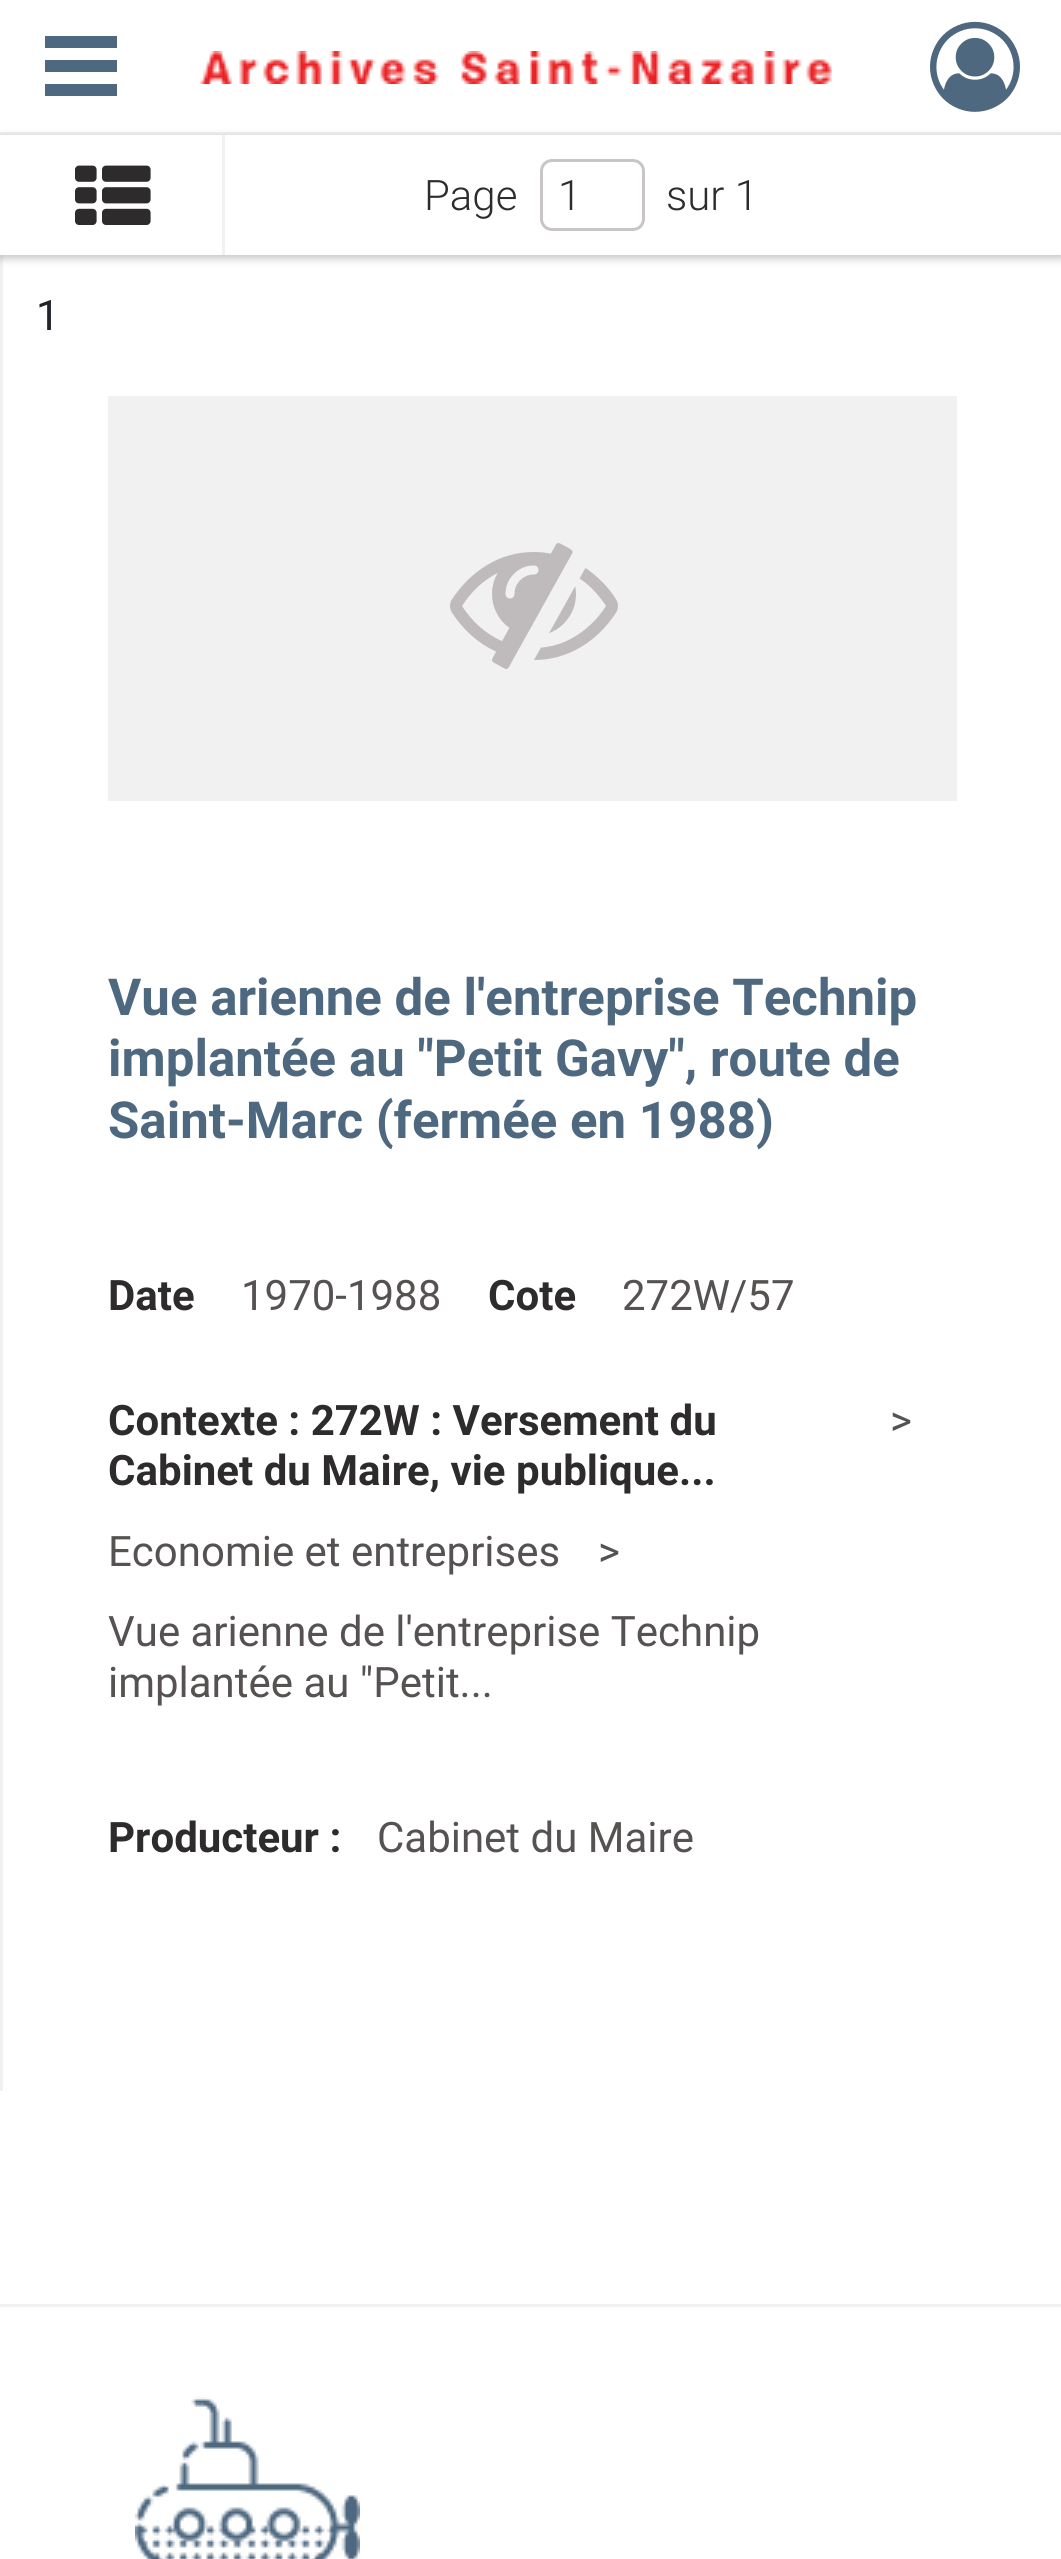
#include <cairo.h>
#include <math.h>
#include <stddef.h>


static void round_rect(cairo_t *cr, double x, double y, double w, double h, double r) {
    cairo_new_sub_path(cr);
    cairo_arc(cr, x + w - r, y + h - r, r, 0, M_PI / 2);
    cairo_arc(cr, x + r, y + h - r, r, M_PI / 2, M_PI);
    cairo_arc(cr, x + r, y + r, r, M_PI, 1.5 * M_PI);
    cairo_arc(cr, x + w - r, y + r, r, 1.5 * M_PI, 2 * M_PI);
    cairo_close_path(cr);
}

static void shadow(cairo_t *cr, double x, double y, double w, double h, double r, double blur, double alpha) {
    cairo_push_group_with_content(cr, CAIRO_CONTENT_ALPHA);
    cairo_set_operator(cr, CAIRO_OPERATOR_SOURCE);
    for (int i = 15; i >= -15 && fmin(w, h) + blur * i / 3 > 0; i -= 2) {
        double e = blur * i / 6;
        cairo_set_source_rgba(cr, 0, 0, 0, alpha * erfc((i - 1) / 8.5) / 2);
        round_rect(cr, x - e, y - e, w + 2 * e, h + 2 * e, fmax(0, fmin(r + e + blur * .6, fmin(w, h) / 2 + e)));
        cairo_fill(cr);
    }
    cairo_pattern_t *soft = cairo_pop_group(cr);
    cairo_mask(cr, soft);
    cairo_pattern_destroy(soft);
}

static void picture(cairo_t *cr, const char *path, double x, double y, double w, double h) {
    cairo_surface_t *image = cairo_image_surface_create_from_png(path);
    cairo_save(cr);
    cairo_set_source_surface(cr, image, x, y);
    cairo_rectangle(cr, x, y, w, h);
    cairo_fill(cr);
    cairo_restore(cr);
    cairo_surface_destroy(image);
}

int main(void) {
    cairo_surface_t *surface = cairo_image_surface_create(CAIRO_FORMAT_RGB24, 1061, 2559);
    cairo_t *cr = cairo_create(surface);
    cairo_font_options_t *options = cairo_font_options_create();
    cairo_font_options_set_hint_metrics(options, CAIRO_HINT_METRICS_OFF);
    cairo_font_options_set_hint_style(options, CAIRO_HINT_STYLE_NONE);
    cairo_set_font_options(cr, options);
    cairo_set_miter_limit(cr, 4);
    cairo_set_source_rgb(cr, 1, 1, 1);
    cairo_paint(cr);
    cairo_set_source_rgb(cr, 0.949, 0.945, 0.945);
    cairo_rectangle(cr, 0, 132, 1061, 3);
    cairo_fill(cr);
    cairo_set_source_rgb(cr, 0.306, 0.408, 0.498);
    cairo_rectangle(cr, 45, 36, 72, 12);
    cairo_fill(cr);
    cairo_rectangle(cr, 45, 60, 72, 12);
    cairo_fill(cr);
    cairo_rectangle(cr, 45, 84, 72, 12);
    cairo_fill(cr);
    picture(cr, "img1.png", 200, 51, 632, 33);
    picture(cr, "img2.png", 930, 21, 90, 91);
    cairo_set_source_rgb(cr, 0.949, 0.945, 0.945);
    cairo_rectangle(cr, 0, 255, 3, 1836);
    cairo_fill(cr);
    cairo_save(cr);
    cairo_set_fill_rule(cr, CAIRO_FILL_RULE_EVEN_ODD);
    cairo_new_path(cr);
    cairo_move_to(cr, 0, 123);
    cairo_line_to(cr, 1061, 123);
    cairo_line_to(cr, 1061, 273);
    cairo_line_to(cr, 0, 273);
    cairo_close_path(cr);
    cairo_move_to(cr, 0, 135);
    cairo_line_to(cr, 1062, 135);
    cairo_line_to(cr, 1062, 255);
    cairo_line_to(cr, 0, 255);
    cairo_close_path(cr);
    cairo_clip(cr);
    cairo_set_source_rgb(cr, 0, 0, 0);
    shadow(cr, 0, 138, 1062, 120, 0, 4.5, 0.25);
    cairo_restore(cr);
    cairo_rectangle(cr, 222, 135, 3, 120);
    cairo_fill(cr);
    picture(cr, "img3.png", 75, 165, 76, 60);
    cairo_select_font_face(cr, "Roboto Light", CAIRO_FONT_SLANT_NORMAL, CAIRO_FONT_WEIGHT_NORMAL);
    cairo_set_font_size(cr, 42);
    cairo_set_source_rgb(cr, 0.176, 0.169, 0.169);
    cairo_move_to(cr, 424, 210);
    cairo_show_text(cr, "Page");
    round_rect(cr, 541.5, 160.5, 102, 69, 10.5);
    cairo_set_source_rgb(cr, 0.788, 0.773, 0.773);
    cairo_set_line_width(cr, 3);
    cairo_stroke(cr);
    cairo_set_source_rgb(cr, 0.176, 0.169, 0.169);
    cairo_move_to(cr, 558, 210);
    cairo_show_text(cr, "1");
    cairo_move_to(cr, 666, 210);
    cairo_show_text(cr, "sur 1");
    cairo_select_font_face(cr, "Roboto", CAIRO_FONT_SLANT_NORMAL, CAIRO_FONT_WEIGHT_NORMAL);
    cairo_set_source_rgb(cr, 0.129, 0.145, 0.161);
    cairo_move_to(cr, 36, 330);
    cairo_show_text(cr, "1");
    cairo_set_source_rgb(cr, 0.949, 0.945, 0.945);
    cairo_rectangle(cr, 108, 396, 849, 405);
    cairo_fill(cr);
    picture(cr, "img4.png", 450, 543, 168, 126);
    cairo_select_font_face(cr, "Roboto", CAIRO_FONT_SLANT_NORMAL, CAIRO_FONT_WEIGHT_BOLD);
    cairo_set_font_size(cr, 51);
    cairo_set_source_rgb(cr, 0.306, 0.408, 0.498);
    cairo_move_to(cr, 108, 1015);
    cairo_show_text(cr, "Vue arienne de l'entreprise Technip");
    cairo_move_to(cr, 108, 1076);
    cairo_show_text(cr, "implantée au \"Petit Gavy\", route de");
    cairo_move_to(cr, 108, 1138);
    cairo_show_text(cr, "Saint-Marc (fermée en 1988)");
    cairo_set_font_size(cr, 42);
    cairo_set_source_rgb(cr, 0.176, 0.169, 0.169);
    cairo_move_to(cr, 108, 1310);
    cairo_show_text(cr, "Date");
    cairo_select_font_face(cr, "Roboto", CAIRO_FONT_SLANT_NORMAL, CAIRO_FONT_WEIGHT_NORMAL);
    cairo_set_source_rgb(cr, 0.337, 0.322, 0.322);
    cairo_move_to(cr, 241, 1310);
    cairo_show_text(cr, "1970-1988");
    cairo_select_font_face(cr, "Roboto", CAIRO_FONT_SLANT_NORMAL, CAIRO_FONT_WEIGHT_BOLD);
    cairo_set_source_rgb(cr, 0.176, 0.169, 0.169);
    cairo_move_to(cr, 488, 1310);
    cairo_show_text(cr, "Cote");
    cairo_select_font_face(cr, "Roboto", CAIRO_FONT_SLANT_NORMAL, CAIRO_FONT_WEIGHT_NORMAL);
    cairo_set_source_rgb(cr, 0.337, 0.322, 0.322);
    cairo_move_to(cr, 622, 1310);
    cairo_show_text(cr, "272W/57");
    cairo_select_font_face(cr, "Roboto", CAIRO_FONT_SLANT_NORMAL, CAIRO_FONT_WEIGHT_BOLD);
    cairo_set_source_rgb(cr, 0.176, 0.169, 0.169);
    cairo_move_to(cr, 108, 1435);
    cairo_show_text(cr, "Contexte : 272W : Versement du");
    cairo_move_to(cr, 108, 1485);
    cairo_show_text(cr, "Cabinet du Maire, vie publique...");
    cairo_select_font_face(cr, "Roboto", CAIRO_FONT_SLANT_NORMAL, CAIRO_FONT_WEIGHT_NORMAL);
    cairo_set_source_rgb(cr, 0.337, 0.322, 0.322);
    cairo_move_to(cr, 890, 1435);
    cairo_show_text(cr, ">");
    cairo_move_to(cr, 108, 1566);
    cairo_show_text(cr, "Economie et entreprises");
    cairo_move_to(cr, 598, 1566);
    cairo_show_text(cr, ">");
    cairo_move_to(cr, 108, 1646);
    cairo_show_text(cr, "Vue arienne de l'entreprise Technip");
    cairo_move_to(cr, 108, 1697);
    cairo_show_text(cr, "implantée au \"Petit...");
    cairo_select_font_face(cr, "Roboto", CAIRO_FONT_SLANT_NORMAL, CAIRO_FONT_WEIGHT_BOLD);
    cairo_set_source_rgb(cr, 0.176, 0.169, 0.169);
    cairo_move_to(cr, 108, 1852);
    cairo_show_text(cr, "Producteur :");
    cairo_select_font_face(cr, "Roboto", CAIRO_FONT_SLANT_NORMAL, CAIRO_FONT_WEIGHT_NORMAL);
    cairo_set_source_rgb(cr, 0.337, 0.322, 0.322);
    cairo_move_to(cr, 377, 1852);
    cairo_show_text(cr, "Cabinet du Maire");
    cairo_set_source_rgb(cr, 0.949, 0.945, 0.945);
    cairo_rectangle(cr, 0, 2304, 1061, 3);
    cairo_fill(cr);
    picture(cr, "img5.png", 135, 2397, 225, 162);
    cairo_surface_write_to_png(surface, "page.png");
    cairo_font_options_destroy(options);
    cairo_destroy(cr);
    cairo_surface_destroy(surface);
    return 0;
}
